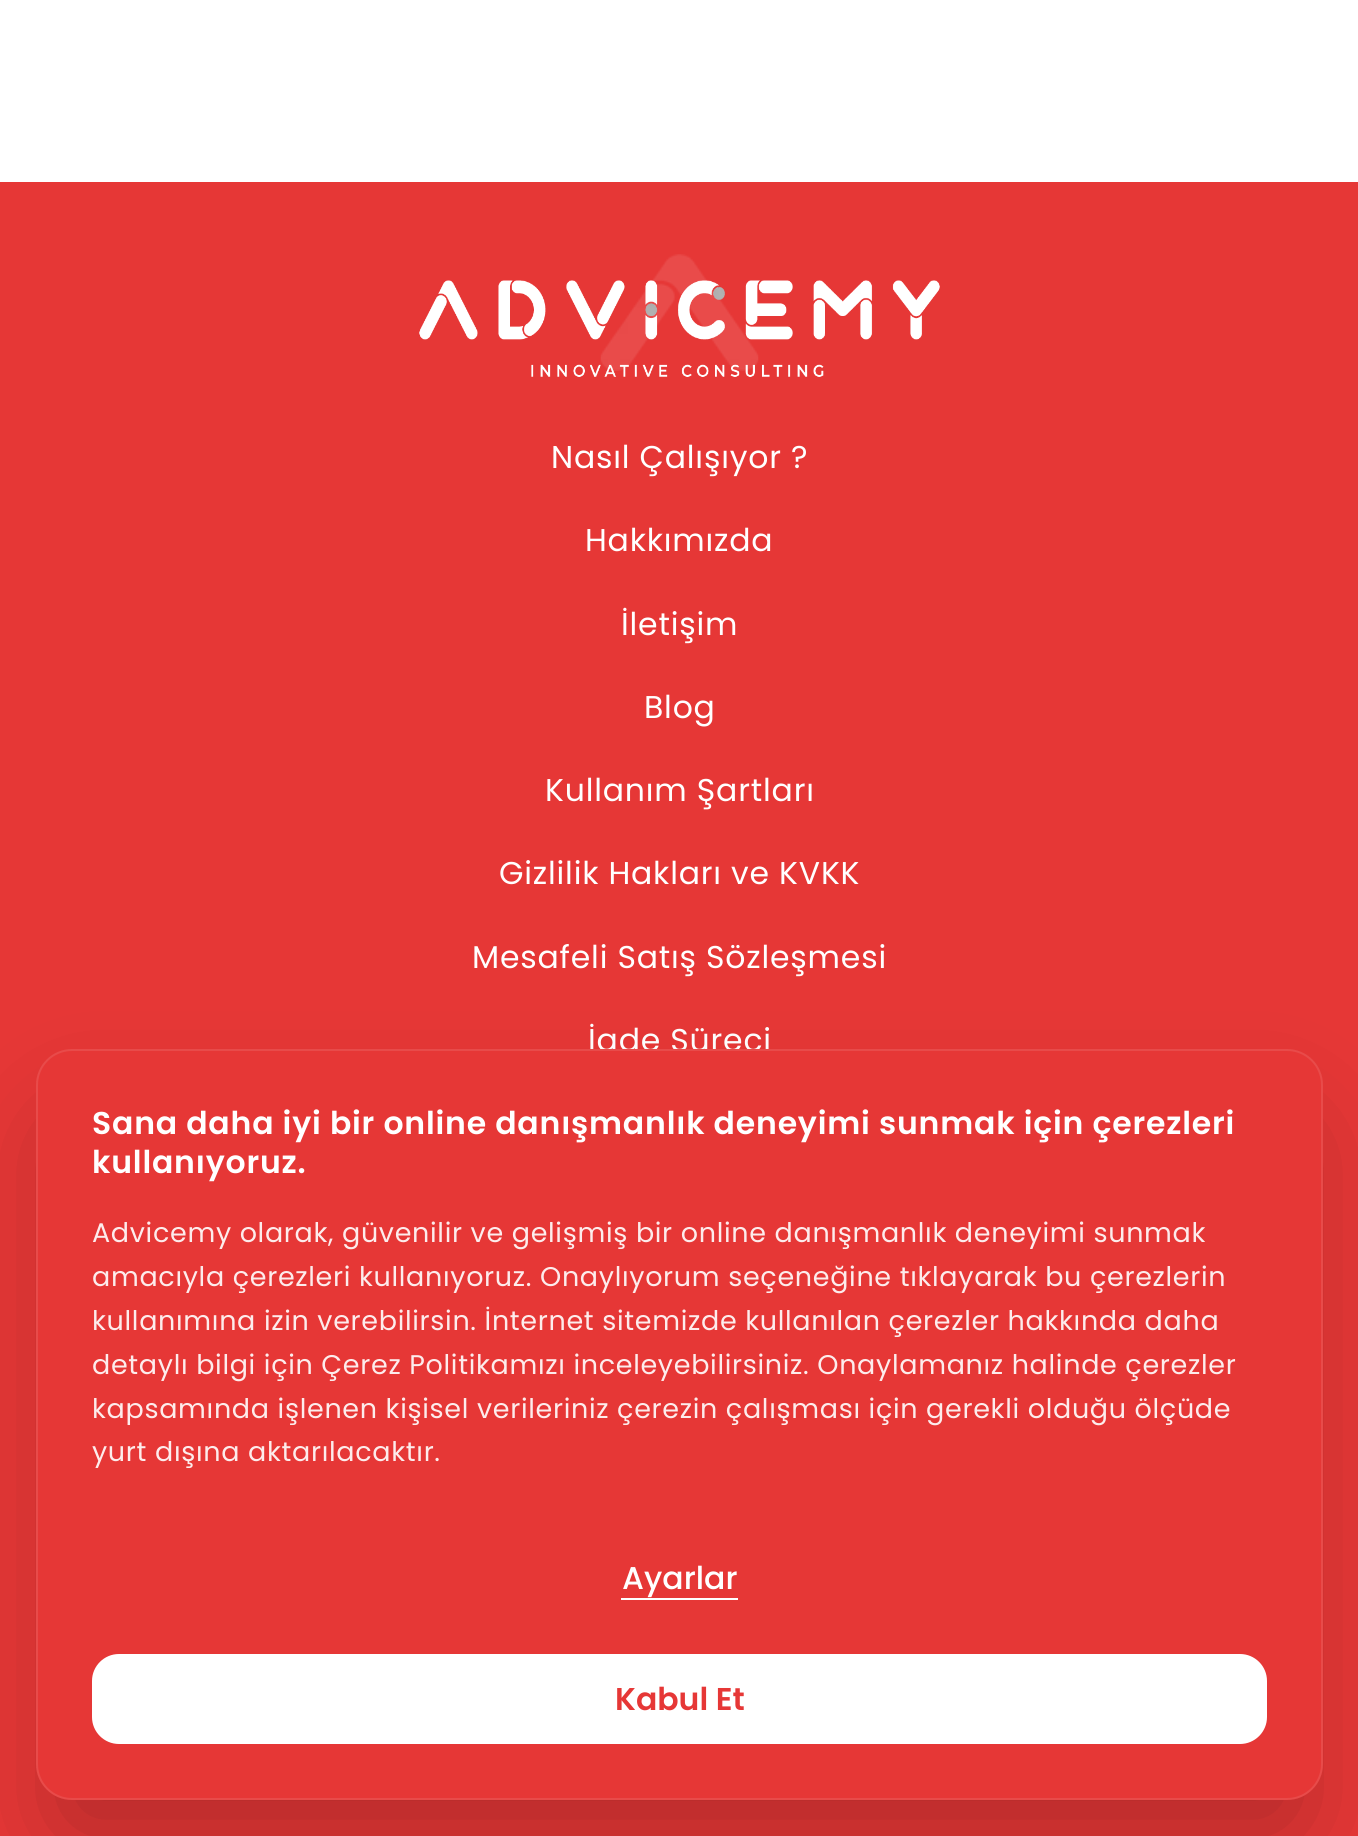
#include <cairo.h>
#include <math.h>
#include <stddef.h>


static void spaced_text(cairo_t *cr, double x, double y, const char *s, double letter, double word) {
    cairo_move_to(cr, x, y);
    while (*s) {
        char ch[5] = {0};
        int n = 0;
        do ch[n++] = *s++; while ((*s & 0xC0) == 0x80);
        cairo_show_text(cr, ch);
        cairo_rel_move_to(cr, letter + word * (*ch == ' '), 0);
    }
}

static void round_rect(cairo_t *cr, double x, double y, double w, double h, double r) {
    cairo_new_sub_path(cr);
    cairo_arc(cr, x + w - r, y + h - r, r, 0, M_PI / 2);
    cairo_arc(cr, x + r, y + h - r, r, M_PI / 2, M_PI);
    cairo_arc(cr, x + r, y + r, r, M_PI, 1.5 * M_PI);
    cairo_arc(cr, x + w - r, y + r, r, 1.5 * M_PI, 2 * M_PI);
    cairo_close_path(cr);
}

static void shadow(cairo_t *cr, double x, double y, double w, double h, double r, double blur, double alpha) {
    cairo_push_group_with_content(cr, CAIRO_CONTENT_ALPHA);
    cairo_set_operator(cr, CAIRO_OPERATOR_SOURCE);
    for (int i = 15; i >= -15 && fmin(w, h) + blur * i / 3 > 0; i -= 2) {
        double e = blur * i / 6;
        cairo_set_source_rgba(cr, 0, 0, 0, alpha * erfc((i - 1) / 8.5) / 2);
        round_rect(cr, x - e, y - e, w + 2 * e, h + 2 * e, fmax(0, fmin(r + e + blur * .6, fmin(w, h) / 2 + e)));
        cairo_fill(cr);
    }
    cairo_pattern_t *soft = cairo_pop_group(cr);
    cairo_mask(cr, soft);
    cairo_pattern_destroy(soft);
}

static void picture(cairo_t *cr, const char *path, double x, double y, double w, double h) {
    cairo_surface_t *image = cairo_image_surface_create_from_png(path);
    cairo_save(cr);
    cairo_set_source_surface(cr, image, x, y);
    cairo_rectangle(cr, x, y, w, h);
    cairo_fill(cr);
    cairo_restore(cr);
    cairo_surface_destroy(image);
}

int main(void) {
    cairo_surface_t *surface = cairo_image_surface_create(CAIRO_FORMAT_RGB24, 1358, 1836);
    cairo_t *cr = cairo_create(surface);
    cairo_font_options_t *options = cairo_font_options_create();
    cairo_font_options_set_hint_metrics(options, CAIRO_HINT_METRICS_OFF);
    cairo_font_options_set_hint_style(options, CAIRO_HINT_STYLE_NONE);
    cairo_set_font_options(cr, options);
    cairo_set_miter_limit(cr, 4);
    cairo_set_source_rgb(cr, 1, 1, 1);
    cairo_paint(cr);
    cairo_set_source_rgb(cr, 0.902, 0.216, 0.212);
    cairo_rectangle(cr, 0, 182, 1358, 1654);
    cairo_fill(cr);
    picture(cr, "img1.png", 600, 254, 159, 117);
    picture(cr, "img2.png", 419, 280, 521, 97);
    cairo_select_font_face(cr, "Poppins", CAIRO_FONT_SLANT_NORMAL, CAIRO_FONT_WEIGHT_NORMAL);
    cairo_set_font_size(cr, 31.5);
    cairo_set_source_rgb(cr, 1, 1, 1);
    spaced_text(cr, 551, 468, "Nasıl Çalışıyor ?", 0.8, 0);
    spaced_text(cr, 585, 551, "Hakkımızda", 0.8, 0);
    spaced_text(cr, 621, 635, "İletişim", 0.8, 0);
    spaced_text(cr, 644, 718, "Blog", 0.8, 0);
    spaced_text(cr, 545, 801, "Kullanım Şartları", 0.8, 0);
    spaced_text(cr, 499, 884, "Gizlilik Hakları ve KVKK", 0.8, 0);
    spaced_text(cr, 472, 968, "Mesafeli Satış Sözleşmesi", 0.8, 0);
    spaced_text(cr, 588, 1051, "İade Süreci", 0.8, 0);
    cairo_set_source_rgb(cr, 0, 0, 0);
    shadow(cr, 63, 1132, 1233, 697, 9, 56, 0.25);
    cairo_set_source_rgb(cr, 0.902, 0.216, 0.212);
    round_rect(cr, 36, 1049, 1287, 751, 36);
    cairo_fill(cr);
    round_rect(cr, 37, 1050, 1285, 749, 35);
    cairo_set_source_rgba(cr, 1, 1, 1, 0.1);
    cairo_stroke(cr);
    cairo_select_font_face(cr, "Poppins SemiBold", CAIRO_FONT_SLANT_NORMAL, CAIRO_FONT_WEIGHT_NORMAL);
    cairo_set_source_rgb(cr, 1, 1, 1);
    spaced_text(cr, 92, 1134, "Sana daha iyi bir online danışmanlık deneyimi sunmak için çerezleri", 0.8, 0);
    spaced_text(cr, 92, 1173, "kullanıyoruz.", 0.8, 0);
    cairo_select_font_face(cr, "Poppins", CAIRO_FONT_SLANT_NORMAL, CAIRO_FONT_WEIGHT_NORMAL);
    cairo_set_font_size(cr, 27);
    cairo_set_source_rgb(cr, 0.992, 0.922, 0.922);
    spaced_text(cr, 92, 1242, "Advicemy olarak, güvenilir ve gelişmiş bir online danışmanlık deneyimi sunmak", 0.67, 0);
    spaced_text(cr, 92, 1286, "amacıyla çerezleri kullanıyoruz. Onaylıyorum seçeneğine tıklayarak bu çerezlerin", 0.67, 0);
    spaced_text(cr, 92, 1330, "kullanımına izin verebilirsin. İnternet sitemizde kullanılan çerezler hakkında daha", 0.67, 0);
    spaced_text(cr, 92, 1374, "detaylı bilgi için Çerez Politikamızı inceleyebilirsiniz. Onaylamanız halinde çerezler", 0.67, 0);
    spaced_text(cr, 92, 1418, "kapsamında işlenen kişisel verileriniz çerezin çalışması için gerekli olduğu ölçüde", 0.67, 0);
    spaced_text(cr, 92, 1461, "yurt dışına aktarılacaktır.", 0.67, 0);
    cairo_select_font_face(cr, "Poppins Medium", CAIRO_FONT_SLANT_NORMAL, CAIRO_FONT_WEIGHT_NORMAL);
    cairo_set_font_size(cr, 31.5);
    cairo_set_source_rgb(cr, 1, 1, 1);
    cairo_move_to(cr, 622, 1589);
    cairo_show_text(cr, "Ayarlar");
    cairo_rectangle(cr, 621, 1598, 117, 2);
    cairo_fill(cr);
    round_rect(cr, 92, 1654, 1175, 90, 27);
    cairo_fill(cr);
    cairo_select_font_face(cr, "Poppins SemiBold", CAIRO_FONT_SLANT_NORMAL, CAIRO_FONT_WEIGHT_NORMAL);
    cairo_set_source_rgb(cr, 0.902, 0.216, 0.212);
    cairo_move_to(cr, 615, 1710);
    cairo_show_text(cr, "Kabul Et");
    cairo_surface_write_to_png(surface, "page.png");
    cairo_font_options_destroy(options);
    cairo_destroy(cr);
    cairo_surface_destroy(surface);
    return 0;
}
